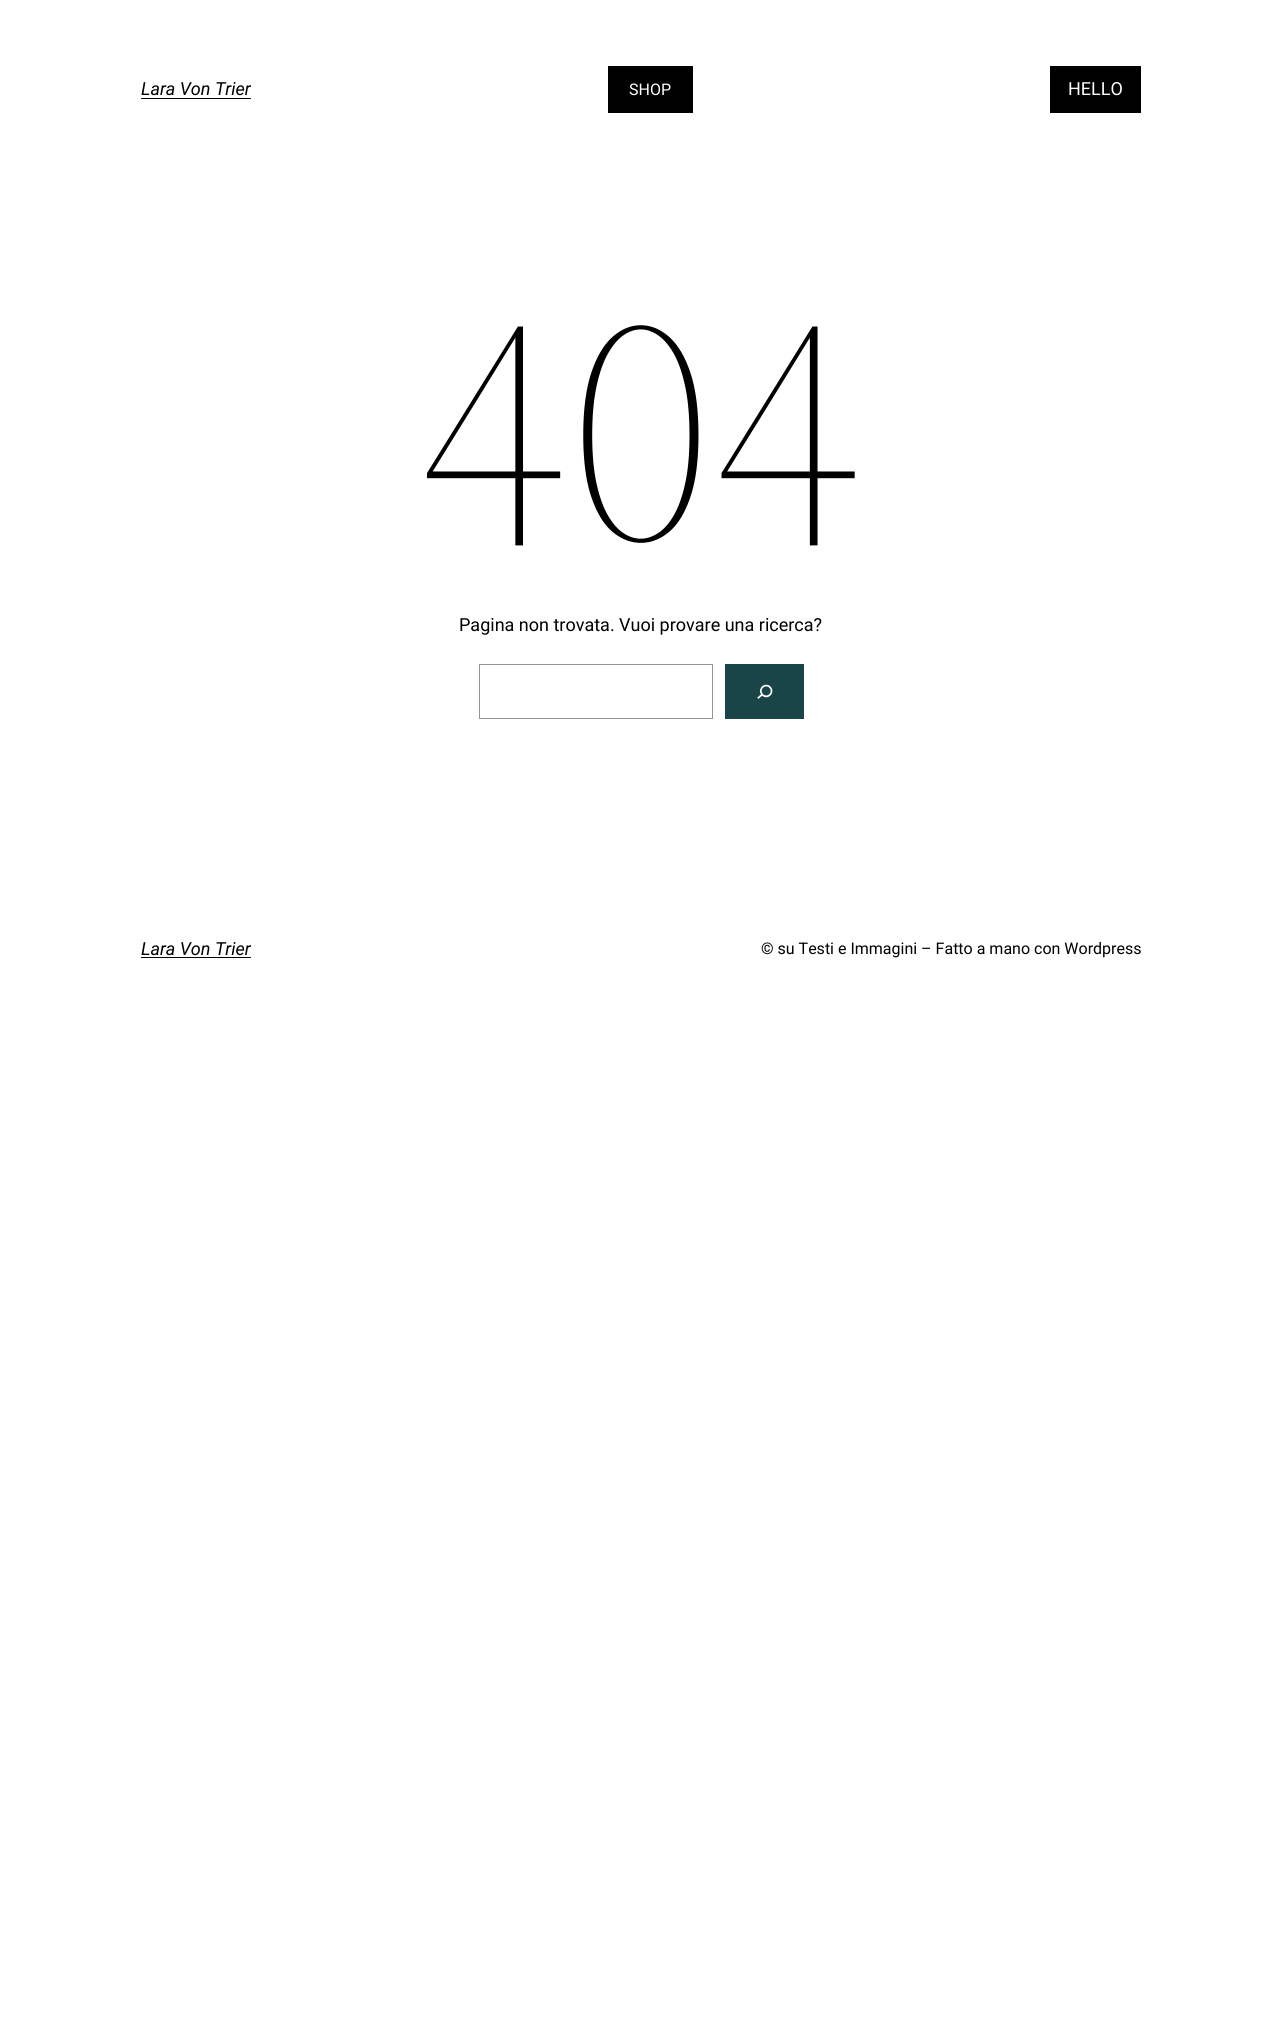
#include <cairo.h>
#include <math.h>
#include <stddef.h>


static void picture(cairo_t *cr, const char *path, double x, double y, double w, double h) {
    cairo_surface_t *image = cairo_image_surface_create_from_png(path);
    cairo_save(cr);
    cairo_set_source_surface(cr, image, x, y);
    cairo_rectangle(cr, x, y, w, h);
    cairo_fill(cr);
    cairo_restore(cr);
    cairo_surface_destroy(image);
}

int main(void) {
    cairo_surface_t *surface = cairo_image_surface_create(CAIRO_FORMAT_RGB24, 1282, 2020);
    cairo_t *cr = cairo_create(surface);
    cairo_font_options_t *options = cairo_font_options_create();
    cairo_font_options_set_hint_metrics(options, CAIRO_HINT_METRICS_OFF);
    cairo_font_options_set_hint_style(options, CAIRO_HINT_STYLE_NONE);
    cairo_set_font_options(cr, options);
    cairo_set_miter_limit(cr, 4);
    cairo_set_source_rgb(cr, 1, 1, 1);
    cairo_paint(cr);
    cairo_select_font_face(cr, "Roboto", CAIRO_FONT_SLANT_ITALIC, CAIRO_FONT_WEIGHT_NORMAL);
    cairo_set_font_size(cr, 18);
    cairo_set_source_rgb(cr, 0, 0, 0);
    cairo_move_to(cr, 141, 95);
    cairo_show_text(cr, "Lara Von Trier");
    cairo_rectangle(cr, 141, 98, 110, 1);
    cairo_fill(cr);
    cairo_rectangle(cr, 608, 66, 85, 47);
    cairo_fill(cr);
    cairo_select_font_face(cr, "Roboto", CAIRO_FONT_SLANT_NORMAL, CAIRO_FONT_WEIGHT_NORMAL);
    cairo_set_font_size(cr, 16);
    cairo_set_source_rgb(cr, 1, 1, 1);
    cairo_move_to(cr, 629, 95);
    cairo_show_text(cr, "SHOP");
    cairo_set_source_rgb(cr, 0, 0, 0);
    cairo_rectangle(cr, 1050, 66, 91, 47);
    cairo_fill(cr);
    cairo_set_font_size(cr, 18);
    cairo_set_source_rgb(cr, 1, 1, 1);
    cairo_move_to(cr, 1068, 95);
    cairo_show_text(cr, "HELLO");
    cairo_select_font_face(cr, "Source Serif 4 ExtraLight", CAIRO_FONT_SLANT_NORMAL, CAIRO_FONT_WEIGHT_NORMAL);
    cairo_set_font_size(cr, 320);
    cairo_set_source_rgb(cr, 0, 0, 0);
    cairo_move_to(cr, 420, 539);
    cairo_show_text(cr, "404");
    cairo_select_font_face(cr, "Roboto", CAIRO_FONT_SLANT_NORMAL, CAIRO_FONT_WEIGHT_NORMAL);
    cairo_set_font_size(cr, 18);
    cairo_move_to(cr, 459, 631);
    cairo_show_text(cr, "Pagina non trovata. Vuoi provare una ricerca?");
    cairo_rectangle(cr, 479.5, 664.5, 233, 54);
    cairo_set_source_rgb(cr, 0.58, 0.58, 0.58);
    cairo_set_line_width(cr, 1);
    cairo_stroke(cr);
    cairo_set_source_rgb(cr, 0.102, 0.271, 0.282);
    cairo_rectangle(cr, 725, 664, 79, 55);
    cairo_fill(cr);
    picture(cr, "img1.png", 757, 684, 16, 15);
    cairo_select_font_face(cr, "Roboto", CAIRO_FONT_SLANT_ITALIC, CAIRO_FONT_WEIGHT_NORMAL);
    cairo_set_source_rgb(cr, 0, 0, 0);
    cairo_move_to(cr, 141, 955);
    cairo_show_text(cr, "Lara Von Trier");
    cairo_rectangle(cr, 141, 957, 110, 1);
    cairo_fill(cr);
    cairo_select_font_face(cr, "Roboto", CAIRO_FONT_SLANT_NORMAL, CAIRO_FONT_WEIGHT_NORMAL);
    cairo_set_font_size(cr, 16);
    cairo_move_to(cr, 761, 954);
    cairo_show_text(cr, "© su Testi e Immagini – Fatto a mano con Wordpress");
    cairo_surface_write_to_png(surface, "page.png");
    cairo_font_options_destroy(options);
    cairo_destroy(cr);
    cairo_surface_destroy(surface);
    return 0;
}
